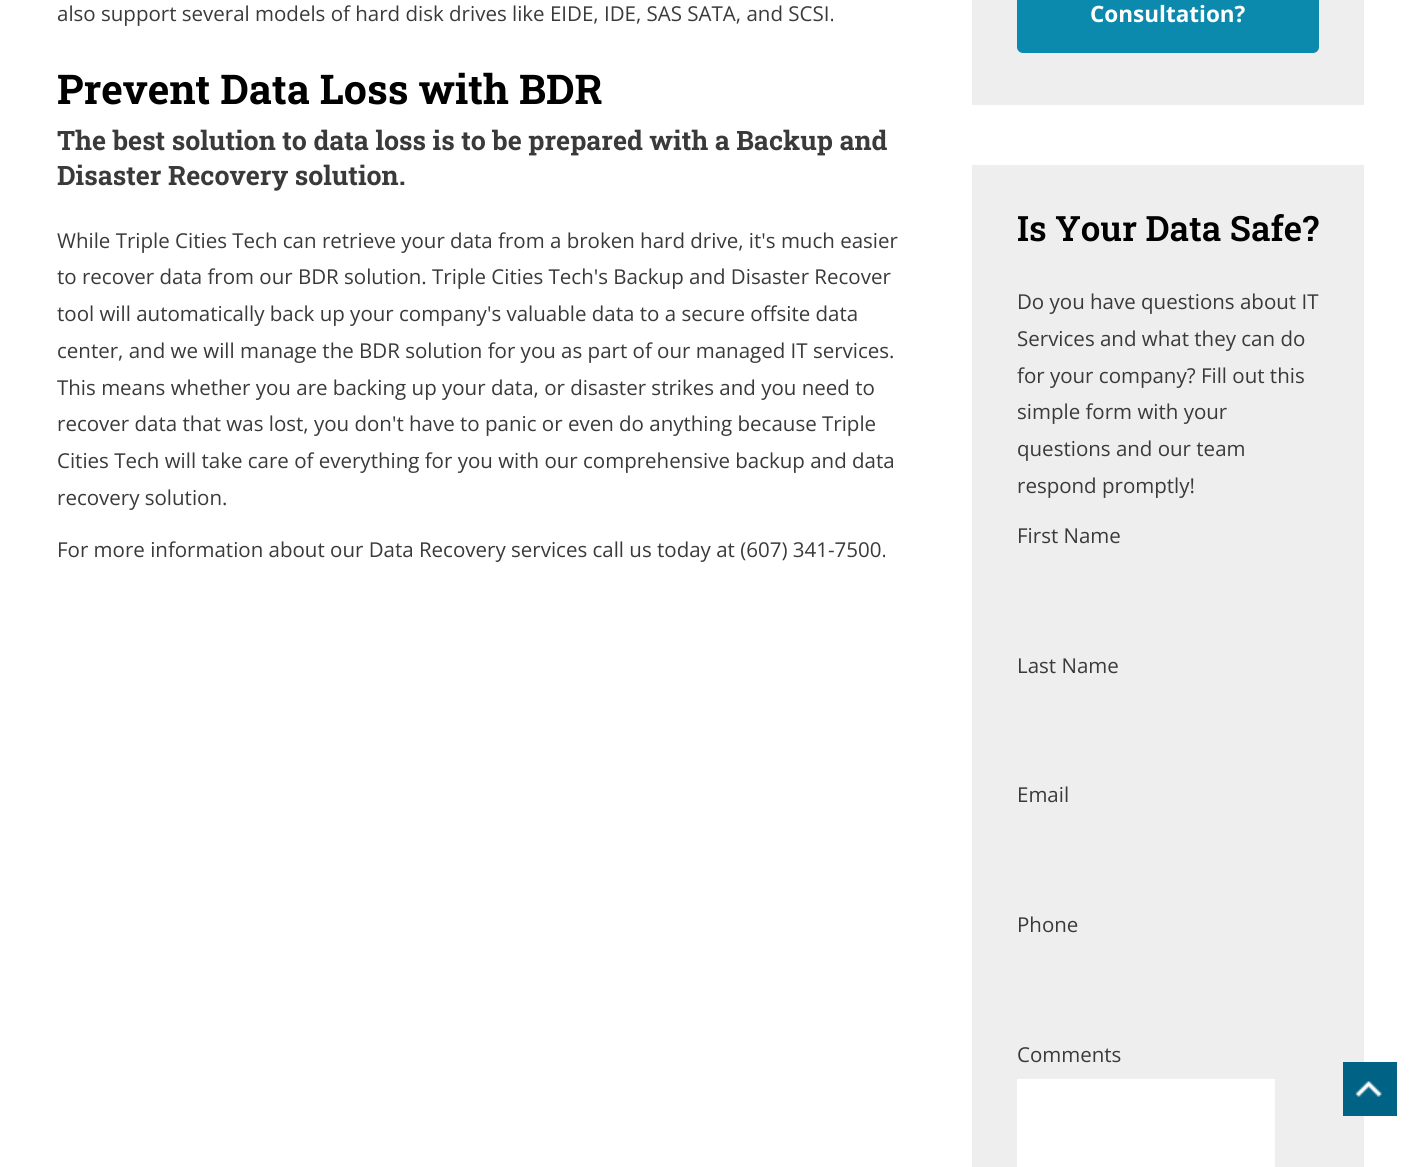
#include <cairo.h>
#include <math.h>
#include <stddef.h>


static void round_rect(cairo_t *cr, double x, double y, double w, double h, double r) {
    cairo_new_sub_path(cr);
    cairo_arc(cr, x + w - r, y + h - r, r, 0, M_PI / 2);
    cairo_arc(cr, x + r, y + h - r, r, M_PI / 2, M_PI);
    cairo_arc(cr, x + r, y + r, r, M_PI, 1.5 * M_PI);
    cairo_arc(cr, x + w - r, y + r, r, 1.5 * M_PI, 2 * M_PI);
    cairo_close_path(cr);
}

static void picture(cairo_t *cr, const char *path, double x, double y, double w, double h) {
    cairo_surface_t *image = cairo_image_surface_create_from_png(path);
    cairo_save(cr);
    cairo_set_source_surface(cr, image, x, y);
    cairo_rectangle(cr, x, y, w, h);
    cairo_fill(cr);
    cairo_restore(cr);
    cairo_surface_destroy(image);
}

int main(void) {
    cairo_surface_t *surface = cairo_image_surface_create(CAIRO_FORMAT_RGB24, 1420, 1167);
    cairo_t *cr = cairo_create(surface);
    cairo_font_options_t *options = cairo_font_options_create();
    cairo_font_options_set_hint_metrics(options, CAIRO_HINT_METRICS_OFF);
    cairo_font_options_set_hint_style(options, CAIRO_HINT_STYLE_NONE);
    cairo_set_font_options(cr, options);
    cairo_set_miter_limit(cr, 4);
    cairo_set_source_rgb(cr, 1, 1, 1);
    cairo_paint(cr);
    cairo_select_font_face(cr, "Open Sans", CAIRO_FONT_SLANT_NORMAL, CAIRO_FONT_WEIGHT_NORMAL);
    cairo_set_font_size(cr, 20.5);
    cairo_set_source_rgb(cr, 0.227, 0.227, 0.227);
    cairo_move_to(cr, 57, 21);
    cairo_show_text(cr, "also support several models of hard disk drives like EIDE, IDE, SAS SATA, and SCSI.");
    cairo_select_font_face(cr, "Roboto Slab", CAIRO_FONT_SLANT_NORMAL, CAIRO_FONT_WEIGHT_BOLD);
    cairo_set_font_size(cr, 41);
    cairo_set_source_rgb(cr, 0, 0, 0);
    cairo_move_to(cr, 57, 104);
    cairo_show_text(cr, "Prevent Data Loss with BDR");
    cairo_set_font_size(cr, 26.7);
    cairo_set_source_rgb(cr, 0.227, 0.227, 0.227);
    cairo_move_to(cr, 57, 150);
    cairo_show_text(cr, "The best solution to data loss is to be prepared with a Backup and");
    cairo_move_to(cr, 57, 185);
    cairo_show_text(cr, "Disaster Recovery solution.");
    cairo_select_font_face(cr, "Open Sans", CAIRO_FONT_SLANT_NORMAL, CAIRO_FONT_WEIGHT_NORMAL);
    cairo_set_font_size(cr, 20.5);
    cairo_move_to(cr, 57, 248);
    cairo_show_text(cr, "While Triple Cities Tech can retrieve your data from a broken hard drive, it's much easier");
    cairo_move_to(cr, 57, 284);
    cairo_show_text(cr, "to recover data from our BDR solution. Triple Cities Tech's Backup and Disaster Recover");
    cairo_move_to(cr, 57, 321);
    cairo_show_text(cr, "tool will automatically back up your company's valuable data to a secure offsite data");
    cairo_move_to(cr, 57, 358);
    cairo_show_text(cr, "center, and we will manage the BDR solution for you as part of our managed IT services.");
    cairo_move_to(cr, 57, 395);
    cairo_show_text(cr, "This means whether you are backing up your data, or disaster strikes and you need to");
    cairo_move_to(cr, 57, 431);
    cairo_show_text(cr, "recover data that was lost, you don't have to panic or even do anything because Triple");
    cairo_move_to(cr, 57, 468);
    cairo_show_text(cr, "Cities Tech will take care of everything for you with our comprehensive backup and data");
    cairo_move_to(cr, 57, 505);
    cairo_show_text(cr, "recovery solution.");
    cairo_move_to(cr, 57, 557);
    cairo_show_text(cr, "For more information about our Data Recovery services call us today at (607) 341-7500.");
    cairo_set_source_rgb(cr, 0.933, 0.933, 0.933);
    cairo_rectangle(cr, 972, 0, 392, 105);
    cairo_fill(cr);
    cairo_set_source_rgb(cr, 0.047, 0.541, 0.678);
    round_rect(cr, 1017, -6, 302, 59, 6);
    cairo_fill(cr);
    cairo_select_font_face(cr, "Open Sans", CAIRO_FONT_SLANT_NORMAL, CAIRO_FONT_WEIGHT_BOLD);
    cairo_set_font_size(cr, 22.5);
    cairo_set_source_rgb(cr, 1, 1, 1);
    cairo_move_to(cr, 1090, 22);
    cairo_show_text(cr, "Consultation?");
    cairo_set_source_rgb(cr, 0.933, 0.933, 0.933);
    cairo_rectangle(cr, 972, 165, 392, 1002);
    cairo_fill(cr);
    cairo_select_font_face(cr, "Roboto Slab SemiBold", CAIRO_FONT_SLANT_NORMAL, CAIRO_FONT_WEIGHT_NORMAL);
    cairo_set_font_size(cr, 34.9);
    cairo_set_source_rgb(cr, 0, 0, 0);
    cairo_move_to(cr, 1017, 241);
    cairo_show_text(cr, "Is Your Data Safe?");
    cairo_select_font_face(cr, "Open Sans", CAIRO_FONT_SLANT_NORMAL, CAIRO_FONT_WEIGHT_NORMAL);
    cairo_set_font_size(cr, 20.5);
    cairo_set_source_rgb(cr, 0.227, 0.227, 0.227);
    cairo_move_to(cr, 1017, 309);
    cairo_show_text(cr, "Do you have questions about IT");
    cairo_move_to(cr, 1017, 346);
    cairo_show_text(cr, "Services and what they can do");
    cairo_move_to(cr, 1017, 383);
    cairo_show_text(cr, "for your company? Fill out this");
    cairo_move_to(cr, 1017, 419);
    cairo_show_text(cr, "simple form with your");
    cairo_move_to(cr, 1017, 456);
    cairo_show_text(cr, "questions and our team");
    cairo_move_to(cr, 1017, 493);
    cairo_show_text(cr, "respond promptly!");
    cairo_move_to(cr, 1017, 543);
    cairo_show_text(cr, "First Name");
    cairo_move_to(cr, 1017, 673);
    cairo_show_text(cr, "Last Name");
    cairo_move_to(cr, 1017, 802);
    cairo_show_text(cr, "Email");
    cairo_move_to(cr, 1017, 932);
    cairo_show_text(cr, "Phone");
    cairo_move_to(cr, 1017, 1062);
    cairo_show_text(cr, "Comments");
    cairo_set_source_rgb(cr, 1, 1, 1);
    cairo_rectangle(cr, 1017, 1079, 258, 88);
    cairo_fill(cr);
    cairo_set_source_rgb(cr, 0, 0.384, 0.522);
    cairo_rectangle(cr, 1343, 1062, 54, 54);
    cairo_fill(cr);
    picture(cr, "img1.png", 1355, 1081, 27, 16);
    cairo_surface_write_to_png(surface, "page.png");
    cairo_font_options_destroy(options);
    cairo_destroy(cr);
    cairo_surface_destroy(surface);
    return 0;
}
